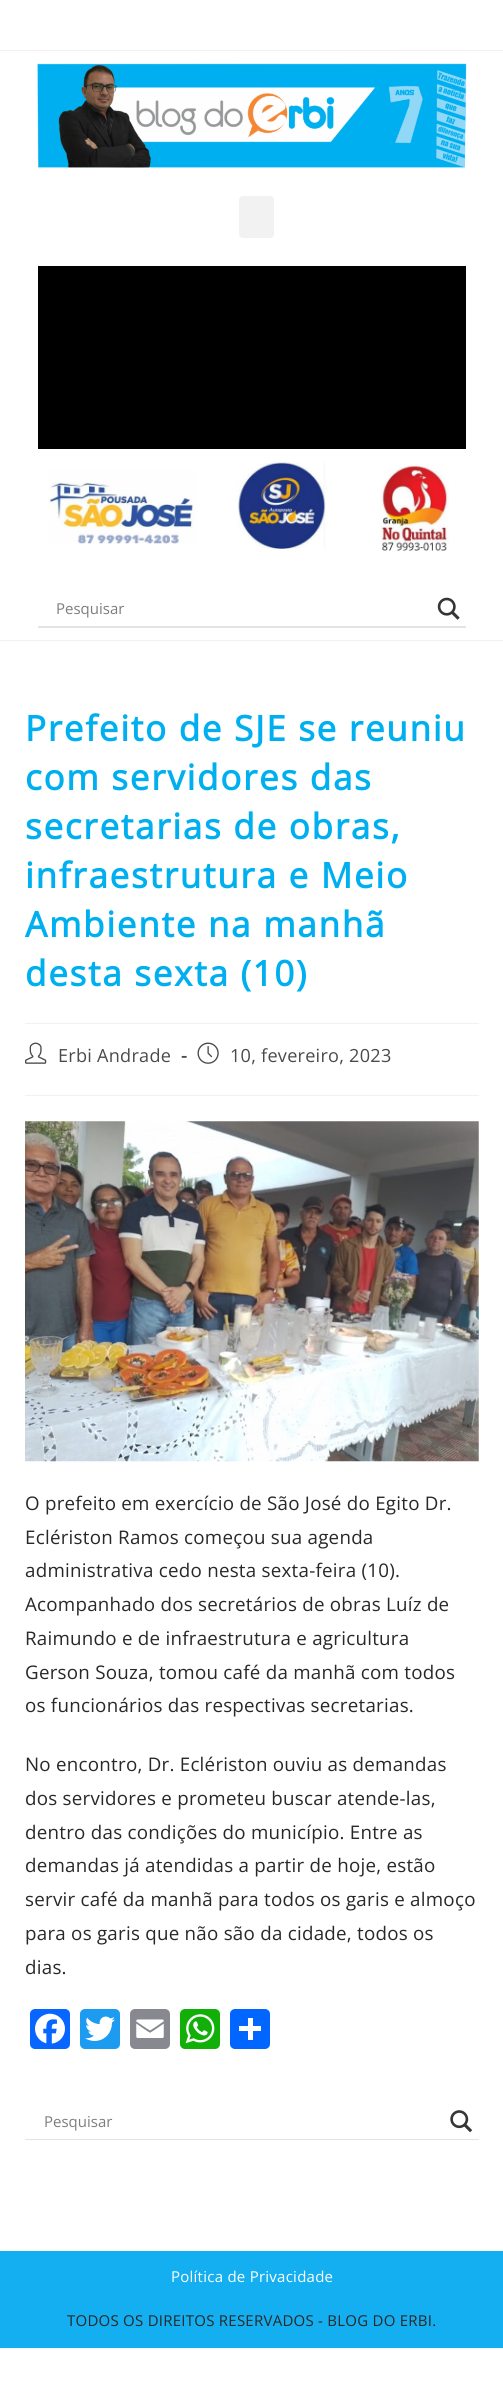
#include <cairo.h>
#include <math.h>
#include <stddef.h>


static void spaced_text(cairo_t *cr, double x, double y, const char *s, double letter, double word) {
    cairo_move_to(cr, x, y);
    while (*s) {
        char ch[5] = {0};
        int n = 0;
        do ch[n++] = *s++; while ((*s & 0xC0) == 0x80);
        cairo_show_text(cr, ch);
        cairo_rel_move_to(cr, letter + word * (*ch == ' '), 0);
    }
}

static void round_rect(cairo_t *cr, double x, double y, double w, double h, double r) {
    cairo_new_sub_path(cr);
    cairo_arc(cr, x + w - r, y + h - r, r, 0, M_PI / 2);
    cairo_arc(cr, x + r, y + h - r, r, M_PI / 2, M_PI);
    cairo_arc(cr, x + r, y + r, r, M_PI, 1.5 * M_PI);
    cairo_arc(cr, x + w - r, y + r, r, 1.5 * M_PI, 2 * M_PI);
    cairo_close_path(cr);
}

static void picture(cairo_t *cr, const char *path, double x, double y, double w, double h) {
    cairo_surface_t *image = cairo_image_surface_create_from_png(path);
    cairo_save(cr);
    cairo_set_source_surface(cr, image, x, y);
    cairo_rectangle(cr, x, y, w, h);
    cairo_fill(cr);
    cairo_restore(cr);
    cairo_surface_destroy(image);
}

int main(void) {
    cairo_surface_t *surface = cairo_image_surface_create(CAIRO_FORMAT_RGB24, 503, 2385);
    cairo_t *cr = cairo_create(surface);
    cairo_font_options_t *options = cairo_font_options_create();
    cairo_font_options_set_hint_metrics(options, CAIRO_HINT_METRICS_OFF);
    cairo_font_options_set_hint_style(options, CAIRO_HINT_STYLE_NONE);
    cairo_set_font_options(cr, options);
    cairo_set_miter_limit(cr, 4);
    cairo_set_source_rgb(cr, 1, 1, 1);
    cairo_paint(cr);
    cairo_set_source_rgb(cr, 0.945, 0.945, 0.945);
    cairo_rectangle(cr, 0, 50, 503, 1);
    cairo_fill(cr);
    cairo_rectangle(cr, 0, 640, 503, 1);
    cairo_fill(cr);
    picture(cr, "img1.png", 37, 63, 430, 105);
    cairo_set_source_rgb(cr, 0.949, 0.949, 0.949);
    round_rect(cr, 239, 196, 35, 42, 4);
    cairo_fill(cr);
    cairo_set_source_rgb(cr, 0, 0, 0);
    cairo_rectangle(cr, 38, 266, 428, 183);
    cairo_fill(cr);
    picture(cr, "img2.png", 47, 462, 402, 89);
    cairo_set_source_rgb(cr, 0.894, 0.894, 0.894);
    cairo_rectangle(cr, 38, 626, 428, 2);
    cairo_fill(cr);
    cairo_select_font_face(cr, "Open Sans", CAIRO_FONT_SLANT_NORMAL, CAIRO_FONT_WEIGHT_NORMAL);
    cairo_set_font_size(cr, 15);
    cairo_set_source_rgb(cr, 0.49, 0.49, 0.49);
    cairo_move_to(cr, 56, 614);
    cairo_show_text(cr, "Pesquisar");
    picture(cr, "img3.png", 437, 597, 23, 23);
    cairo_set_source_rgb(cr, 0.945, 0.945, 0.945);
    cairo_rectangle(cr, 25, 1023, 454, 1);
    cairo_fill(cr);
    cairo_select_font_face(cr, "Open Sans", CAIRO_FONT_SLANT_NORMAL, CAIRO_FONT_WEIGHT_BOLD);
    cairo_set_font_size(cr, 35);
    cairo_set_source_rgb(cr, 0, 0.686, 0.937);
    spaced_text(cr, 25, 741, "Prefeito de SJE se reuniu", 1.75, 0);
    spaced_text(cr, 25, 790, "com servidores das", 1.75, 0);
    spaced_text(cr, 25, 839, "secretarias de obras,", 1.75, 0);
    spaced_text(cr, 25, 888, "infraestrutura e Meio", 1.75, 0);
    spaced_text(cr, 25, 937, "Ambiente na manhã", 1.75, 0);
    spaced_text(cr, 25, 986, "desta sexta (10)", 1.75, 0);
    cairo_set_source_rgb(cr, 0.945, 0.945, 0.945);
    cairo_rectangle(cr, 25, 1095, 454, 1);
    cairo_fill(cr);
    picture(cr, "img4.png", 25, 1042, 22, 22);
    cairo_select_font_face(cr, "Open Sans", CAIRO_FONT_SLANT_NORMAL, CAIRO_FONT_WEIGHT_NORMAL);
    cairo_set_font_size(cr, 18.1);
    cairo_set_source_rgb(cr, 0.29, 0.29, 0.29);
    spaced_text(cr, 58, 1062, "Erbi Andrade", 0.25, 0);
    cairo_select_font_face(cr, "Open Sans", CAIRO_FONT_SLANT_NORMAL, CAIRO_FONT_WEIGHT_BOLD);
    spaced_text(cr, 181, 1062, "-", 0.25, 0);
    picture(cr, "img5.png", 197, 1042, 22, 22);
    cairo_select_font_face(cr, "Open Sans", CAIRO_FONT_SLANT_NORMAL, CAIRO_FONT_WEIGHT_NORMAL);
    spaced_text(cr, 230, 1062, "10, fevereiro, 2023", 0.25, 0);
    picture(cr, "img6.png", 25, 1121, 454, 341);
    cairo_set_font_size(cr, 18.75);
    cairo_set_source_rgb(cr, 0.157, 0.157, 0.157);
    spaced_text(cr, 25, 1510, "O prefeito em exercício de São José do Egito Dr.", 0.25, 0);
    spaced_text(cr, 25, 1544, "Eclériston Ramos começou sua agenda", 0.25, 0);
    spaced_text(cr, 25, 1577, "administrativa cedo nesta sexta-feira (10).", 0.25, 0);
    spaced_text(cr, 25, 1611, "Acompanhado dos secretários de obras Luíz de", 0.25, 0);
    spaced_text(cr, 25, 1645, "Raimundo e de infraestrutura e agricultura", 0.25, 0);
    spaced_text(cr, 25, 1679, "Gerson Souza, tomou café da manhã com todos", 0.25, 0);
    spaced_text(cr, 25, 1712, "os funcionários das respectivas secretarias.", 0.25, 0);
    spaced_text(cr, 25, 1771, "No encontro, Dr. Eclériston ouviu as demandas", 0.25, 0);
    spaced_text(cr, 25, 1805, "dos servidores e prometeu buscar atende-las,", 0.25, 0);
    spaced_text(cr, 25, 1839, "dentro das condições do município. Entre as", 0.25, 0);
    spaced_text(cr, 25, 1872, "demandas já atendidas a partir de hoje, estão", 0.25, 0);
    spaced_text(cr, 25, 1906, "servir café da manhã para todos os garis e almoço", 0.25, 0);
    spaced_text(cr, 25, 1940, "para os garis que não são da cidade, todos os", 0.25, 0);
    spaced_text(cr, 25, 1974, "dias.", 0.25, 0);
    cairo_set_source_rgb(cr, 0.031, 0.4, 1);
    round_rect(cr, 30, 2009, 40, 40, 5);
    cairo_fill(cr);
    picture(cr, "img7.png", 35, 2013, 30, 31);
    cairo_set_source_rgb(cr, 0.114, 0.608, 0.941);
    round_rect(cr, 80, 2009, 40, 40, 5);
    cairo_fill(cr);
    picture(cr, "img8.png", 85, 2016, 30, 25);
    cairo_set_source_rgb(cr, 0.533, 0.537, 0.565);
    round_rect(cr, 130, 2009, 40, 40, 5);
    cairo_fill(cr);
    picture(cr, "img9.png", 136, 2019, 28, 19);
    cairo_set_source_rgb(cr, 0.071, 0.686, 0.039);
    round_rect(cr, 180, 2009, 40, 40, 5);
    cairo_fill(cr);
    picture(cr, "img10.png", 185, 2014, 30, 30);
    cairo_set_source_rgb(cr, 0.004, 0.4, 1);
    round_rect(cr, 230, 2009, 40, 40, 5);
    cairo_fill(cr);
    cairo_set_source_rgb(cr, 1, 1, 1);
    cairo_rectangle(cr, 248, 2018, 5, 22);
    cairo_fill(cr);
    cairo_rectangle(cr, 239, 2026, 22, 5);
    cairo_fill(cr);
    cairo_set_source_rgb(cr, 0.894, 0.894, 0.894);
    cairo_new_path(cr);
    cairo_move_to(cr, 25, 2139);
    cairo_line_to(cr, 25, 2140);
    cairo_line_to(cr, 479, 2140);
    cairo_line_to(cr, 479, 2105);
    cairo_line_to(cr, 479, 2139);
    cairo_close_path(cr);
    cairo_fill(cr);
    cairo_set_font_size(cr, 15);
    cairo_set_source_rgb(cr, 0.49, 0.49, 0.49);
    cairo_move_to(cr, 44, 2127);
    cairo_show_text(cr, "Pesquisar");
    picture(cr, "img11.png", 450, 2110, 23, 23);
    cairo_set_source_rgb(cr, 0.075, 0.686, 0.941);
    cairo_rectangle(cr, 0, 2251, 503, 97);
    cairo_fill(cr);
    cairo_set_source_rgb(cr, 1, 1, 1);
    spaced_text(cr, 171, 2282, "Política de Privacidade", 0.25, 0);
    cairo_set_source_rgb(cr, 0.157, 0.157, 0.157);
    spaced_text(cr, 67, 2326, "TODOS OS DIREITOS RESERVADOS - BLOG DO ERBI.", 0.25, 0);
    cairo_surface_write_to_png(surface, "page.png");
    cairo_font_options_destroy(options);
    cairo_destroy(cr);
    cairo_surface_destroy(surface);
    return 0;
}
